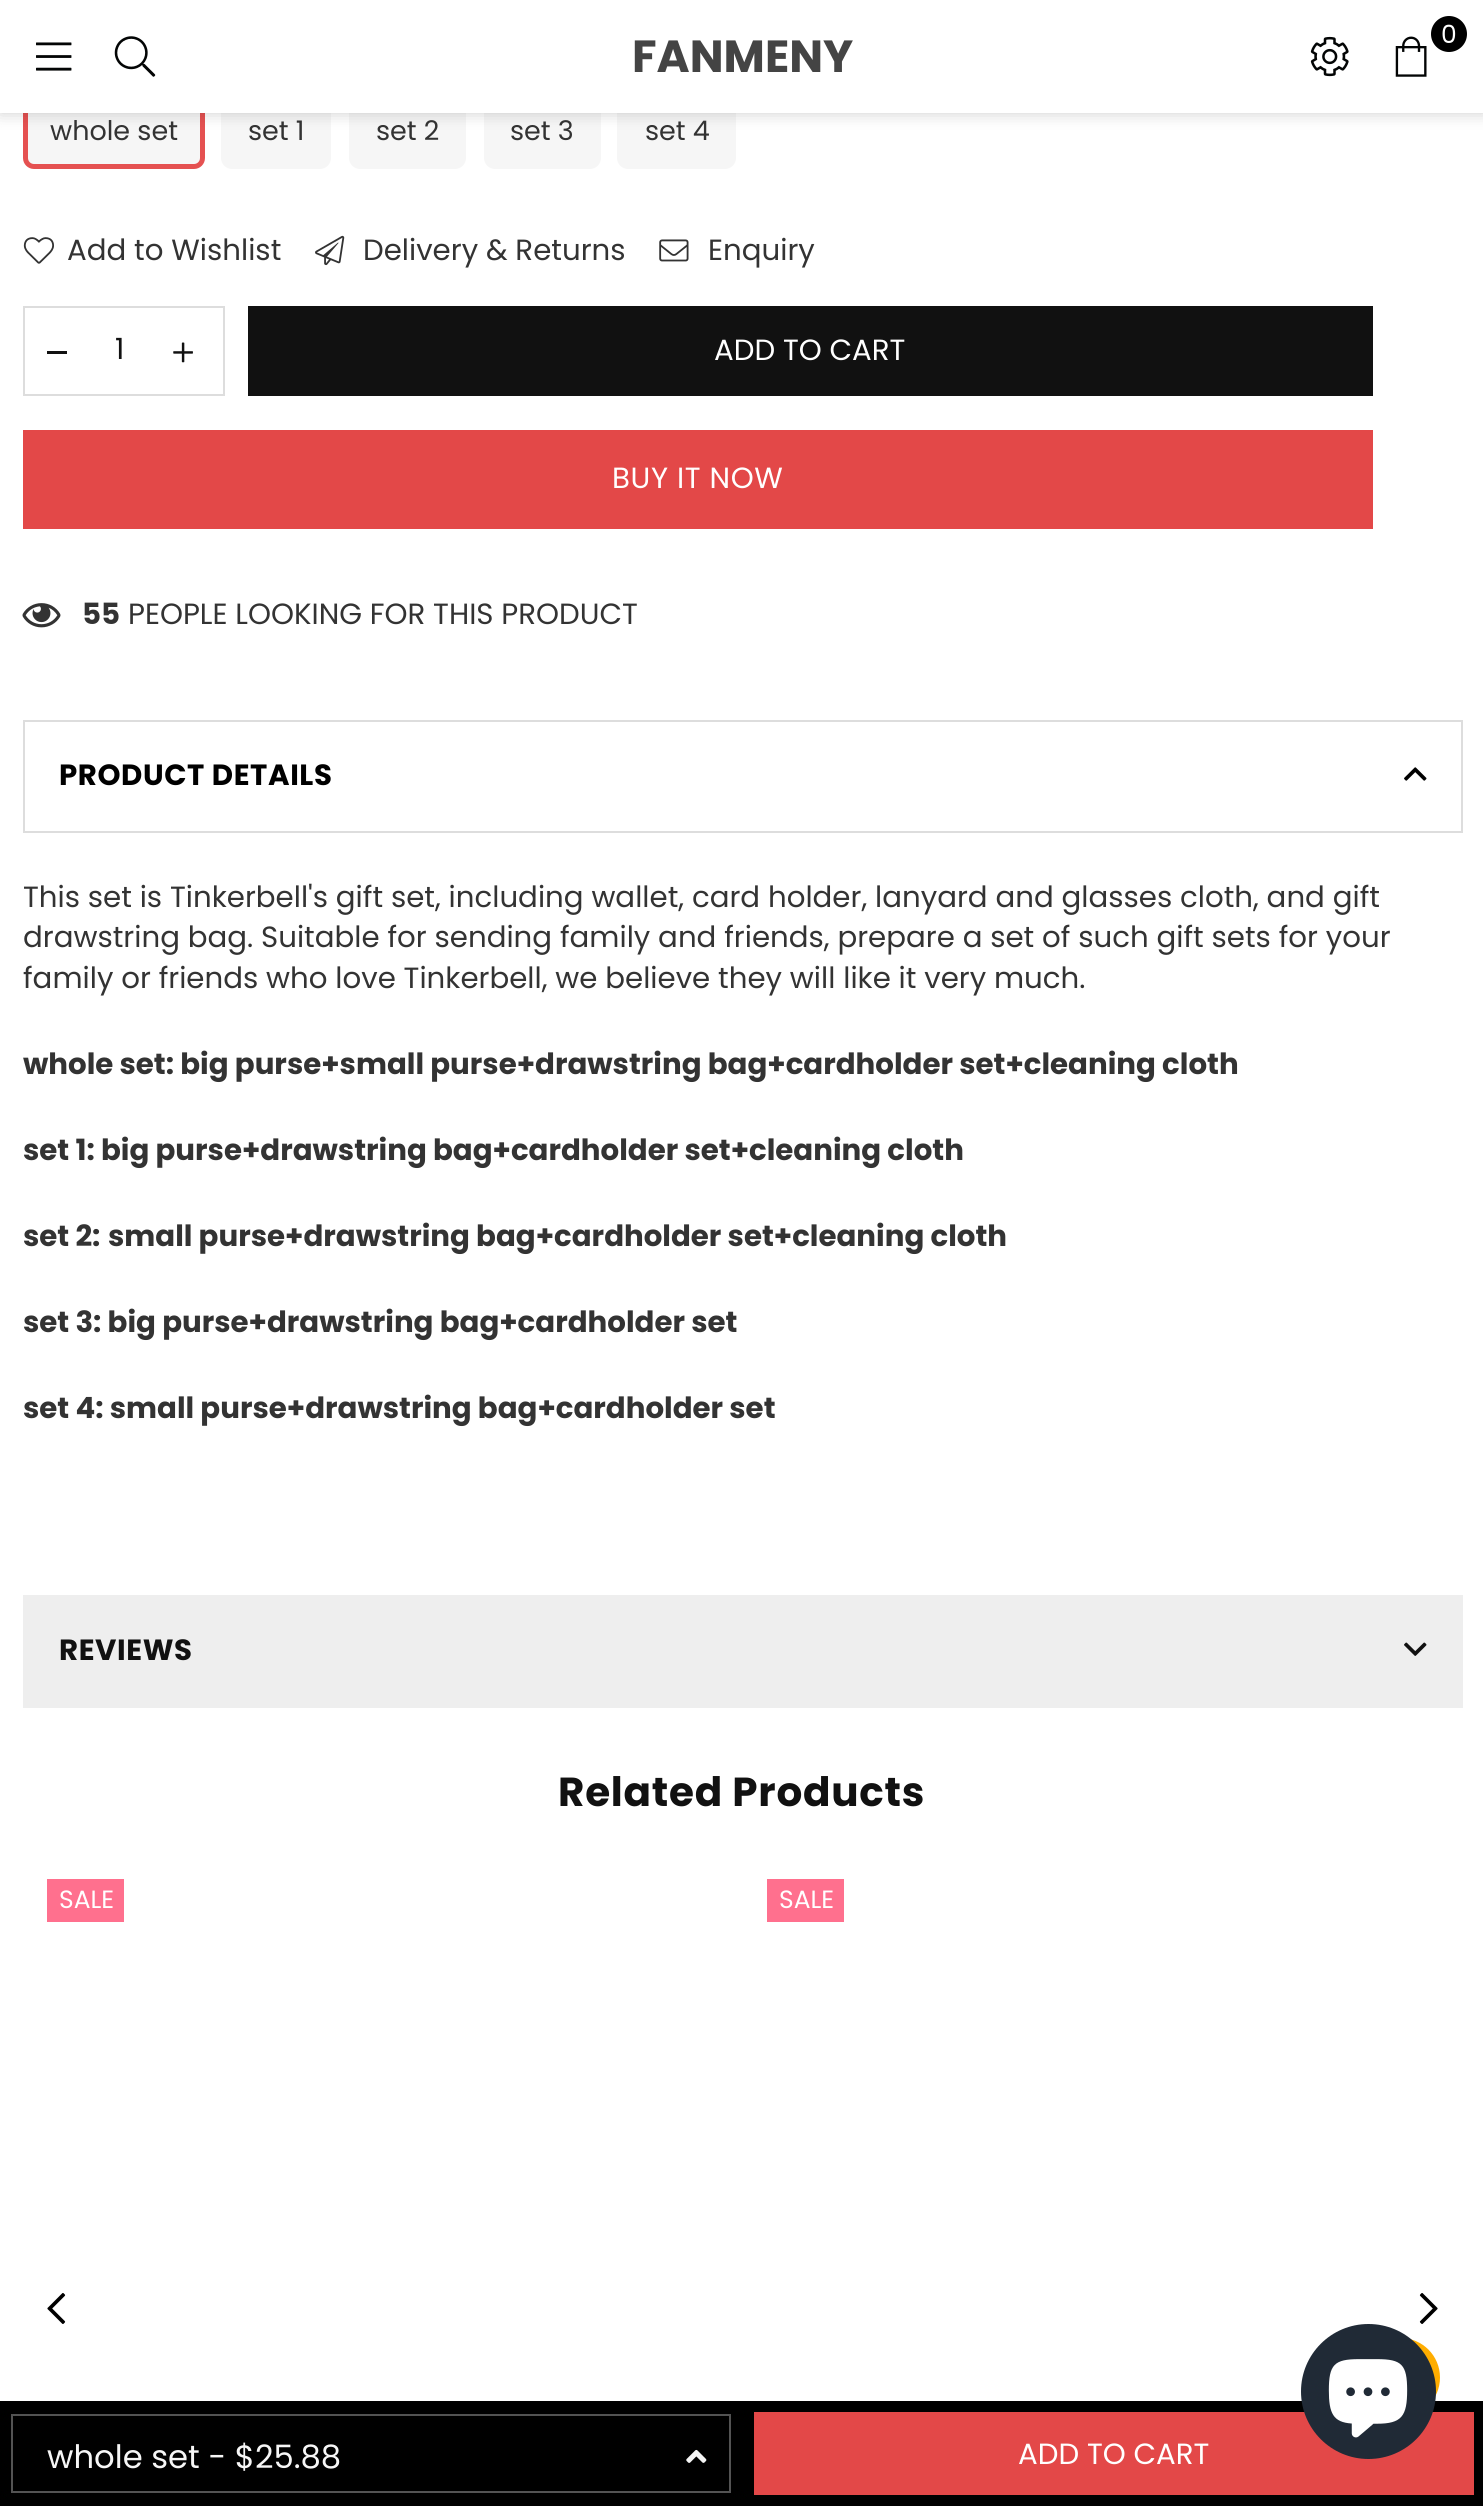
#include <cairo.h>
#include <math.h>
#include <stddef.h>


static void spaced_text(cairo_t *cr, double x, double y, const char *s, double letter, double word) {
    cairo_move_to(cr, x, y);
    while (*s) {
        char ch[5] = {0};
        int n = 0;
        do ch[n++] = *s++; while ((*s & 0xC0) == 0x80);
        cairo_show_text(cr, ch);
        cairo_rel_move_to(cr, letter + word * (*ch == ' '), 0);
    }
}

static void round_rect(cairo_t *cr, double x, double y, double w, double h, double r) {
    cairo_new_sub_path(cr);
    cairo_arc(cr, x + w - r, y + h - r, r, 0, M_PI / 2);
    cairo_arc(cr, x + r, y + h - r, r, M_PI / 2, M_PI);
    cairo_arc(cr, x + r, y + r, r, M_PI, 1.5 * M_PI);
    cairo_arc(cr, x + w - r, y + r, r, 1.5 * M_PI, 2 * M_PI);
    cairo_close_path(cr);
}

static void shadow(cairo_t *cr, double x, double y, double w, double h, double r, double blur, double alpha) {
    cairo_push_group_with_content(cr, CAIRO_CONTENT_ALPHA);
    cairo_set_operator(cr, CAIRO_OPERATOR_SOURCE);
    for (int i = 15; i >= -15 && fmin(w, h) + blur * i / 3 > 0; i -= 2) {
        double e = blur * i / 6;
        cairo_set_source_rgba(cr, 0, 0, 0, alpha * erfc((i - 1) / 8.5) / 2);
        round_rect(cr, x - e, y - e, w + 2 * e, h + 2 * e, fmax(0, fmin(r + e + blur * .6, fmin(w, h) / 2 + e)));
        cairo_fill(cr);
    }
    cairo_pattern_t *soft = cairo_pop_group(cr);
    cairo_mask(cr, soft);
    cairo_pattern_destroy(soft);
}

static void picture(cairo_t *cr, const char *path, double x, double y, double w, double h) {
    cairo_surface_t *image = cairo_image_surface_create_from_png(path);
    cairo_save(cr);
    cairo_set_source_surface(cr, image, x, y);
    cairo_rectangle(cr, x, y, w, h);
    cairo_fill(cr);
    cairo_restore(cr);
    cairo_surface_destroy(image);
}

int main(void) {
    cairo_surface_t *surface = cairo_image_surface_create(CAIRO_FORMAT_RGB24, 1483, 2506);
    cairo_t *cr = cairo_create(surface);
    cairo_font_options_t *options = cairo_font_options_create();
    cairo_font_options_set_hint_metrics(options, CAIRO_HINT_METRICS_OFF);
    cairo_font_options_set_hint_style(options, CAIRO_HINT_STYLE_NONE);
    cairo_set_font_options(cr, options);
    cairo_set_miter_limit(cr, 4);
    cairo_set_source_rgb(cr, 1, 1, 1);
    cairo_paint(cr);
    cairo_set_source_rgb(cr, 0.961, 0.961, 0.961);
    round_rect(cr, 25.5, 92.5, 177, 74, 8.5);
    cairo_fill_preserve(cr);
    cairo_set_source_rgb(cr, 0.898, 0.318, 0.318);
    cairo_set_line_width(cr, 5);
    cairo_stroke(cr);
    cairo_set_source_rgb(cr, 0.961, 0.961, 0.961);
    round_rect(cr, 221, 90, 110, 79, 11);
    cairo_fill(cr);
    round_rect(cr, 349, 90, 117, 79, 11);
    cairo_fill(cr);
    round_rect(cr, 484, 90, 117, 79, 11);
    cairo_fill(cr);
    round_rect(cr, 617, 90, 119, 79, 11);
    cairo_fill(cr);
    cairo_set_source_rgb(cr, 0, 0, 0);
    shadow(cr, 0, 0, 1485, 113, 0, 8, 0.2);
    cairo_set_source_rgb(cr, 1, 1, 1);
    cairo_rectangle(cr, 0, 0, 1483, 113);
    cairo_fill(cr);
    cairo_set_source_rgb(cr, 0, 0, 0);
    cairo_arc(cr, 1449, 34, 18, 0, 2 * M_PI);
    cairo_fill(cr);
    cairo_select_font_face(cr, "Poppins", CAIRO_FONT_SLANT_NORMAL, CAIRO_FONT_WEIGHT_NORMAL);
    cairo_set_font_size(cr, 25);
    cairo_set_source_rgb(cr, 1, 1, 1);
    cairo_move_to(cr, 1441, 43);
    cairo_show_text(cr, "0");
    picture(cr, "img1.png", 1395, 36, 32, 41);
    picture(cr, "img2.png", 1310, 36, 39, 41);
    picture(cr, "img3.png", 36, 42, 36, 29);
    picture(cr, "img4.png", 114, 36, 42, 41);
    cairo_select_font_face(cr, "Poppins", CAIRO_FONT_SLANT_NORMAL, CAIRO_FONT_WEIGHT_BOLD);
    cairo_set_font_size(cr, 45);
    cairo_set_source_rgb(cr, 0.267, 0.267, 0.267);
    cairo_move_to(cr, 632, 72);
    cairo_show_text(cr, "FANMENY");
    cairo_select_font_face(cr, "Poppins", CAIRO_FONT_SLANT_NORMAL, CAIRO_FONT_WEIGHT_NORMAL);
    cairo_set_font_size(cr, 27);
    cairo_set_source_rgb(cr, 0.2, 0.2, 0.2);
    cairo_move_to(cr, 50, 140);
    cairo_show_text(cr, "whole set");
    cairo_move_to(cr, 248, 140);
    cairo_show_text(cr, "set 1");
    cairo_move_to(cr, 376, 140);
    cairo_show_text(cr, "set 2");
    cairo_move_to(cr, 510, 140);
    cairo_show_text(cr, "set 3");
    cairo_move_to(cr, 645, 140);
    cairo_show_text(cr, "set 4");
    picture(cr, "img5.png", 23, 237, 31, 27);
    cairo_set_font_size(cr, 29.25);
    cairo_move_to(cr, 67, 260);
    cairo_show_text(cr, "Add to Wishlist");
    picture(cr, "img6.png", 315, 235, 30, 31);
    cairo_move_to(cr, 363, 260);
    cairo_show_text(cr, "Delivery & Returns");
    picture(cr, "img7.png", 659, 239, 30, 23);
    cairo_move_to(cr, 708, 260);
    cairo_show_text(cr, "Enquiry");
    cairo_rectangle(cr, 24, 307, 200, 88);
    cairo_set_source_rgb(cr, 0.867, 0.867, 0.867);
    cairo_set_line_width(cr, 2);
    cairo_stroke(cr);
    cairo_set_source_rgb(cr, 0.067, 0.067, 0.067);
    cairo_rectangle(cr, 47, 351, 20, 3);
    cairo_fill(cr);
    cairo_move_to(cr, 115, 359);
    cairo_show_text(cr, "1");
    picture(cr, "img8.png", 173, 342, 20, 21);
    cairo_rectangle(cr, 248, 306, 1125, 90);
    cairo_fill(cr);
    cairo_set_source_rgb(cr, 1, 1, 1);
    cairo_move_to(cr, 714, 360);
    cairo_show_text(cr, "ADD TO CART");
    cairo_set_source_rgb(cr, 0.89, 0.282, 0.282);
    cairo_rectangle(cr, 23, 430, 1350, 99);
    cairo_fill(cr);
    cairo_set_source_rgb(cr, 1, 1, 1);
    spaced_text(cr, 612, 488, "BUY IT NOW", 0.6, 0);
    picture(cr, "img9.png", 22, 603, 39, 25);
    cairo_select_font_face(cr, "Poppins", CAIRO_FONT_SLANT_NORMAL, CAIRO_FONT_WEIGHT_BOLD);
    cairo_set_source_rgb(cr, 0.2, 0.2, 0.2);
    cairo_move_to(cr, 82, 624);
    cairo_show_text(cr, "55");
    cairo_select_font_face(cr, "Poppins", CAIRO_FONT_SLANT_NORMAL, CAIRO_FONT_WEIGHT_NORMAL);
    cairo_move_to(cr, 128, 624);
    cairo_show_text(cr, "PEOPLE LOOKING FOR THIS PRODUCT");
    cairo_rectangle(cr, 24, 721, 1438, 111);
    cairo_set_source_rgb(cr, 0.867, 0.867, 0.867);
    cairo_stroke(cr);
    cairo_select_font_face(cr, "Poppins", CAIRO_FONT_SLANT_NORMAL, CAIRO_FONT_WEIGHT_BOLD);
    cairo_set_source_rgb(cr, 0, 0, 0);
    spaced_text(cr, 59, 785, "PRODUCT DETAILS", 0.6, 0);
    picture(cr, "img10.png", 1404, 767, 23, 14);
    cairo_select_font_face(cr, "Poppins", CAIRO_FONT_SLANT_NORMAL, CAIRO_FONT_WEIGHT_NORMAL);
    cairo_set_source_rgb(cr, 0.2, 0.2, 0.2);
    cairo_move_to(cr, 23, 907);
    cairo_show_text(cr, "This set is Tinkerbell's gift set, including wallet, card holder, lanyard and glasses cloth, and gift");
    cairo_move_to(cr, 23, 947);
    cairo_show_text(cr, "drawstring bag. Suitable for sending family and friends, prepare a set of such gift sets for your");
    cairo_move_to(cr, 23, 988);
    cairo_show_text(cr, "family or friends who love Tinkerbell, we believe they will like it very much.");
    cairo_select_font_face(cr, "Poppins", CAIRO_FONT_SLANT_NORMAL, CAIRO_FONT_WEIGHT_BOLD);
    cairo_move_to(cr, 23, 1074);
    cairo_show_text(cr, "whole set: big purse+small purse+drawstring bag+cardholder set+cleaning cloth");
    cairo_move_to(cr, 23, 1160);
    cairo_show_text(cr, "set 1: big purse+drawstring bag+cardholder set+cleaning cloth");
    cairo_move_to(cr, 23, 1246);
    cairo_show_text(cr, "set 2:");
    cairo_move_to(cr, 108, 1246);
    cairo_show_text(cr, "small purse+drawstring bag+cardholder set+cleaning cloth");
    cairo_move_to(cr, 23, 1332);
    cairo_show_text(cr, "set 3: big purse+drawstring bag+cardholder set");
    cairo_move_to(cr, 23, 1418);
    cairo_show_text(cr, "set 4: small purse+drawstring bag+cardholder set");
    cairo_set_source_rgb(cr, 0.933, 0.933, 0.933);
    cairo_rectangle(cr, 23, 1595, 1440, 113);
    cairo_fill(cr);
    cairo_set_source_rgb(cr, 0.067, 0.067, 0.067);
    spaced_text(cr, 59, 1660, "REVIEWS", 0.6, 0);
    picture(cr, "img11.png", 1404, 1642, 23, 14);
    cairo_set_font_size(cr, 40.5);
    spaced_text(cr, 558, 1806, "Related Products", 0.75, 0);
    cairo_set_source_rgb(cr, 1, 0.439, 0.557);
    cairo_rectangle(cr, 47, 1879, 77, 43);
    cairo_fill(cr);
    cairo_select_font_face(cr, "Poppins", CAIRO_FONT_SLANT_NORMAL, CAIRO_FONT_WEIGHT_NORMAL);
    cairo_set_font_size(cr, 25);
    cairo_set_source_rgb(cr, 1, 1, 1);
    cairo_move_to(cr, 59, 1908);
    cairo_show_text(cr, "SALE");
    cairo_set_source_rgb(cr, 1, 0.439, 0.557);
    cairo_rectangle(cr, 767, 1879, 77, 43);
    cairo_fill(cr);
    cairo_set_source_rgb(cr, 1, 1, 1);
    cairo_move_to(cr, 779, 1908);
    cairo_show_text(cr, "SALE");
    picture(cr, "img12.png", 47, 2293, 19, 31);
    picture(cr, "img13.png", 1419, 2293, 19, 31);
    cairo_set_source_rgb(cr, 0, 0, 0);
    cairo_rectangle(cr, 0, 2401, 1483, 105);
    cairo_fill(cr);
    cairo_rectangle(cr, 12, 2415, 718, 77);
    cairo_set_source_rgb(cr, 0.325, 0.325, 0.325);
    cairo_stroke(cr);
    cairo_set_font_size(cr, 32.25);
    cairo_set_source_rgb(cr, 0.961, 0.961, 0.961);
    cairo_move_to(cr, 47, 2468);
    cairo_show_text(cr, "whole set - $25.88");
    picture(cr, "img14.png", 686, 2449, 21, 14);
    cairo_set_source_rgb(cr, 0.89, 0.282, 0.282);
    cairo_rectangle(cr, 754, 2412, 720, 83);
    cairo_fill(cr);
    cairo_set_font_size(cr, 29.25);
    cairo_set_source_rgb(cr, 1, 1, 1);
    cairo_move_to(cr, 1018, 2464);
    cairo_show_text(cr, "ADD TO CART");
    cairo_set_source_rgb(cr, 1, 0.678, 0);
    cairo_new_path(cr);
    cairo_arc(cr, 1400.5, 2377.5, 39.5, 0, 2 * M_PI);
    cairo_fill(cr);
    cairo_set_source_rgb(cr, 0.125, 0.165, 0.212);
    cairo_arc(cr, 1368.5, 2391.5, 67.5, 0, 2 * M_PI);
    cairo_fill(cr);
    picture(cr, "img15.png", 1328, 2359, 80, 79);
    cairo_surface_write_to_png(surface, "page.png");
    cairo_font_options_destroy(options);
    cairo_destroy(cr);
    cairo_surface_destroy(surface);
    return 0;
}
